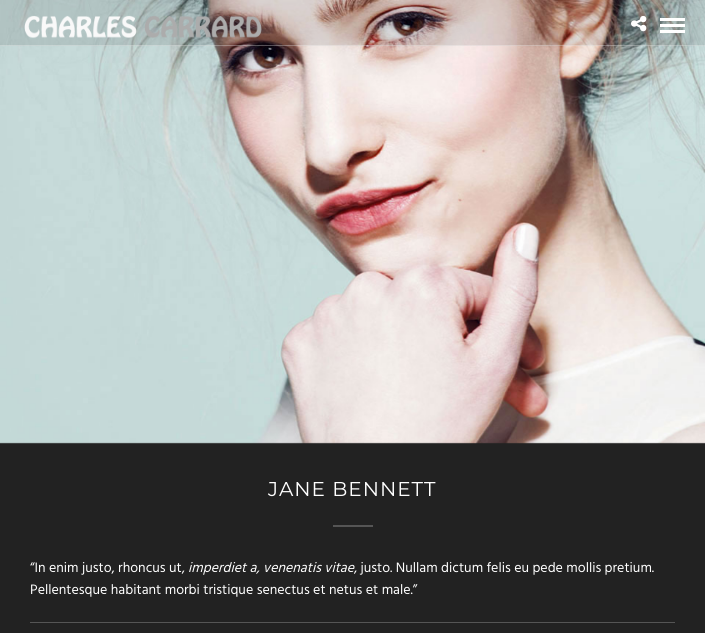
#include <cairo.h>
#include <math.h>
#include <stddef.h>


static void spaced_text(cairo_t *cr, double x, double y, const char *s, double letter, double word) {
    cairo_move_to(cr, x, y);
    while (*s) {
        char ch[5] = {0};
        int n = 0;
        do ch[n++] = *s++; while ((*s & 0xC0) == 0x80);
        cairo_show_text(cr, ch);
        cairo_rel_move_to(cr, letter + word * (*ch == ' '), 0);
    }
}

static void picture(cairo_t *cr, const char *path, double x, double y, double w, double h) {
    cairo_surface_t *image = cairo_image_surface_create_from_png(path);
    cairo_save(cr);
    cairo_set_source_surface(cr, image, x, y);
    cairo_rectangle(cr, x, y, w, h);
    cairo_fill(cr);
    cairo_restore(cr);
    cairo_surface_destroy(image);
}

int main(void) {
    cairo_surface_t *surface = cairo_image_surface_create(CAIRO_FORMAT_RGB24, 705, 633);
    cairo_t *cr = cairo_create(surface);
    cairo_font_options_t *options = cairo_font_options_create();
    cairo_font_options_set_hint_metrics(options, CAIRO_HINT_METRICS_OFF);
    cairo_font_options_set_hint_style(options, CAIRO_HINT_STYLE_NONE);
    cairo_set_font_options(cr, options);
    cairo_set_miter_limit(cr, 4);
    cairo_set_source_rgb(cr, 0.133, 0.133, 0.133);
    cairo_paint(cr);
    picture(cr, "img1.png", 0, 0, 705, 444);
    cairo_set_source_rgba(cr, 0, 0, 0, 0.1);
    cairo_rectangle(cr, 0, 0, 705, 46);
    cairo_fill(cr);
    cairo_set_source_rgba(cr, 1, 1, 1, 0.3);
    cairo_rectangle(cr, 0, 45, 705, 1);
    cairo_fill(cr);
    picture(cr, "img2.png", 24, 15, 238, 23);
    picture(cr, "img3.png", 631, 15, 16, 17);
    cairo_set_source_rgb(cr, 1, 1, 1);
    cairo_rectangle(cr, 660, 18, 25, 3);
    cairo_fill(cr);
    cairo_rectangle(cr, 660, 24, 25, 3);
    cairo_fill(cr);
    cairo_rectangle(cr, 660, 30, 25, 3);
    cairo_fill(cr);
    cairo_select_font_face(cr, "Montserrat", CAIRO_FONT_SLANT_NORMAL, CAIRO_FONT_WEIGHT_NORMAL);
    cairo_set_font_size(cr, 20);
    spaced_text(cr, 268, 496, "JANE BENNETT", 1, 0);
    cairo_set_source_rgb(cr, 0.333, 0.333, 0.333);
    cairo_rectangle(cr, 333, 525, 40, 2);
    cairo_fill(cr);
    cairo_select_font_face(cr, "Hind", CAIRO_FONT_SLANT_NORMAL, CAIRO_FONT_WEIGHT_NORMAL);
    cairo_set_font_size(cr, 14);
    cairo_set_source_rgb(cr, 1, 1, 1);
    cairo_move_to(cr, 30, 572);
    cairo_show_text(cr, "“In enim justo, rhoncus ut,");
    cairo_select_font_face(cr, "Hind", CAIRO_FONT_SLANT_ITALIC, CAIRO_FONT_WEIGHT_NORMAL);
    cairo_move_to(cr, 188, 572);
    cairo_show_text(cr, "imperdiet a, venenatis vitae");
    cairo_select_font_face(cr, "Hind", CAIRO_FONT_SLANT_NORMAL, CAIRO_FONT_WEIGHT_NORMAL);
    cairo_move_to(cr, 354, 572);
    cairo_show_text(cr, ", justo. Nullam dictum felis eu pede mollis pretium.");
    cairo_move_to(cr, 30, 594);
    cairo_show_text(cr, "Pellentesque habitant morbi tristique senectus et netus et male.”");
    cairo_set_source_rgb(cr, 0.333, 0.333, 0.333);
    cairo_rectangle(cr, 30, 622, 645, 1);
    cairo_fill(cr);
    cairo_surface_write_to_png(surface, "page.png");
    cairo_font_options_destroy(options);
    cairo_destroy(cr);
    cairo_surface_destroy(surface);
    return 0;
}
